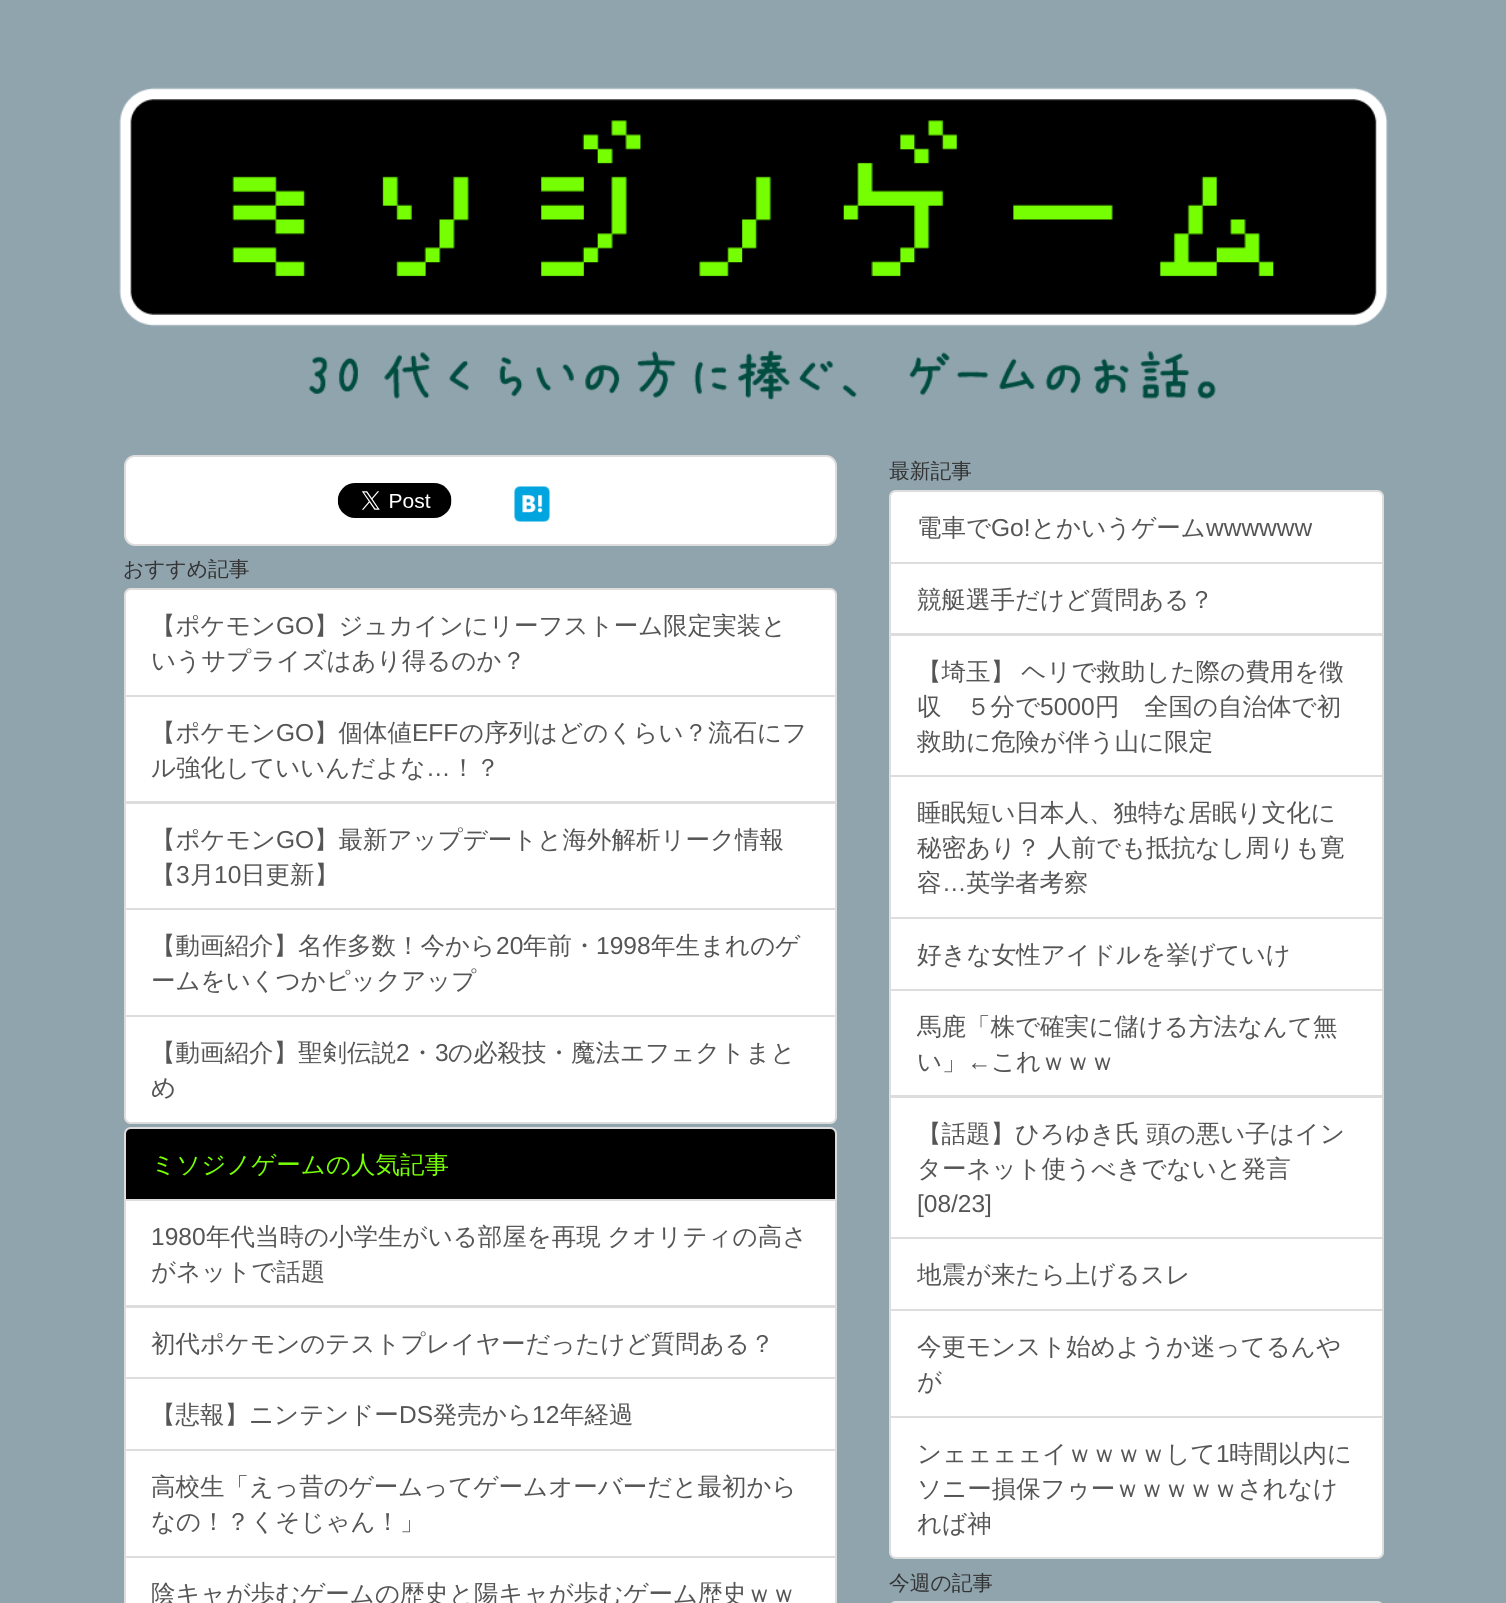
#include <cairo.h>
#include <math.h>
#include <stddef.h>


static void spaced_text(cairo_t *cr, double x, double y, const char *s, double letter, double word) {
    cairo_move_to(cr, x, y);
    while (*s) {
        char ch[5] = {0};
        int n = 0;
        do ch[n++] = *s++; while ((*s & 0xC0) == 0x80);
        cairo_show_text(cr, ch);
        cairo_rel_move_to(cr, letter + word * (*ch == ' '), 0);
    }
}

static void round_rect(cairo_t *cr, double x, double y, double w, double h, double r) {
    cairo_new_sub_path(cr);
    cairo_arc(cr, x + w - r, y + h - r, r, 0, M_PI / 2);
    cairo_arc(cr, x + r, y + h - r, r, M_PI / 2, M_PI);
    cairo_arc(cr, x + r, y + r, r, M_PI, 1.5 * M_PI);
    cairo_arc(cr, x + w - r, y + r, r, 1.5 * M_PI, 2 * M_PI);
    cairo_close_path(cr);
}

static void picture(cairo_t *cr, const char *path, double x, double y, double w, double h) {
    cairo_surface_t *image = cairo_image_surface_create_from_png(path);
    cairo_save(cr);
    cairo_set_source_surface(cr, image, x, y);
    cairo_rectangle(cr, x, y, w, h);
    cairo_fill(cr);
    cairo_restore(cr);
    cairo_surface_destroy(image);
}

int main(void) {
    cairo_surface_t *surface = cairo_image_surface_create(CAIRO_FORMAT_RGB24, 1506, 1603);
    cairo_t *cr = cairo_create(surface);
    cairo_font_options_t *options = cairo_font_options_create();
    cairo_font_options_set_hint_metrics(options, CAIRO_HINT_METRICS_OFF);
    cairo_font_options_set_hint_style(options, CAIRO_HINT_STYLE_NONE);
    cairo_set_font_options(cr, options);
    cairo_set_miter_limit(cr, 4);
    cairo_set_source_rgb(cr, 0.565, 0.643, 0.682);
    cairo_paint(cr);
    picture(cr, "img1.png", 119, 87, 1269, 314);
    cairo_set_source_rgb(cr, 1, 1, 1);
    round_rect(cr, 125, 456, 711, 89, 10);
    cairo_fill_preserve(cr);
    cairo_set_source_rgb(cr, 0.867, 0.867, 0.867);
    cairo_stroke(cr);
    picture(cr, "img2.png", 337, 483, 115, 35);
    picture(cr, "img3.png", 514, 486, 36, 36);
    cairo_select_font_face(cr, "WenQuanYi Zen Hei Medium", CAIRO_FONT_SLANT_NORMAL, CAIRO_FONT_WEIGHT_NORMAL);
    cairo_set_font_size(cr, 20.75);
    cairo_set_source_rgb(cr, 0.2, 0.2, 0.2);
    cairo_move_to(cr, 123, 576);
    cairo_show_text(cr, "おすすめ記事");
    cairo_set_source_rgb(cr, 1, 1, 1);
    cairo_new_path(cr);
    cairo_move_to(cr, 131, 589);
    cairo_line_to(cr, 830, 589);
    cairo_curve_to(cr, 833.5, 589, 836, 591.5, 836, 595);
    cairo_line_to(cr, 836, 696);
    cairo_line_to(cr, 125, 696);
    cairo_line_to(cr, 125, 595);
    cairo_curve_to(cr, 125, 591.5, 127.5, 589, 131, 589);
    cairo_close_path(cr);
    cairo_fill_preserve(cr);
    cairo_set_source_rgb(cr, 0.867, 0.867, 0.867);
    cairo_stroke(cr);
    cairo_set_font_size(cr, 24.5);
    cairo_set_source_rgb(cr, 0.333, 0.333, 0.333);
    cairo_move_to(cr, 151, 634);
    cairo_show_text(cr, "【ポケモン");
    cairo_select_font_face(cr, "Liberation Sans", CAIRO_FONT_SLANT_NORMAL, CAIRO_FONT_WEIGHT_NORMAL);
    cairo_move_to(cr, 276, 634);
    cairo_show_text(cr, "GO");
    cairo_select_font_face(cr, "WenQuanYi Zen Hei Medium", CAIRO_FONT_SLANT_NORMAL, CAIRO_FONT_WEIGHT_NORMAL);
    cairo_move_to(cr, 314, 634);
    cairo_show_text(cr, "】ジュカインにリーフストーム限定実装と");
    cairo_move_to(cr, 151, 669);
    cairo_show_text(cr, "いうサプライズはあり得るのか？");
    cairo_set_source_rgb(cr, 1, 1, 1);
    cairo_rectangle(cr, 125, 696, 711, 106);
    cairo_fill_preserve(cr);
    cairo_set_source_rgb(cr, 0.867, 0.867, 0.867);
    cairo_stroke(cr);
    cairo_set_source_rgb(cr, 0.333, 0.333, 0.333);
    cairo_move_to(cr, 151, 741);
    cairo_show_text(cr, "【ポケモン");
    cairo_select_font_face(cr, "Liberation Sans", CAIRO_FONT_SLANT_NORMAL, CAIRO_FONT_WEIGHT_NORMAL);
    cairo_move_to(cr, 276, 741);
    cairo_show_text(cr, "GO");
    cairo_select_font_face(cr, "WenQuanYi Zen Hei Medium", CAIRO_FONT_SLANT_NORMAL, CAIRO_FONT_WEIGHT_NORMAL);
    cairo_move_to(cr, 314, 741);
    cairo_show_text(cr, "】個体値");
    cairo_select_font_face(cr, "Liberation Sans", CAIRO_FONT_SLANT_NORMAL, CAIRO_FONT_WEIGHT_NORMAL);
    cairo_move_to(cr, 412, 741);
    cairo_show_text(cr, "EFF");
    cairo_select_font_face(cr, "WenQuanYi Zen Hei Medium", CAIRO_FONT_SLANT_NORMAL, CAIRO_FONT_WEIGHT_NORMAL);
    cairo_move_to(cr, 459, 741);
    cairo_show_text(cr, "の序列はどのくらい？流石にフ");
    cairo_move_to(cr, 151, 776);
    cairo_show_text(cr, "ル強化していいんだよな");
    cairo_select_font_face(cr, "Liberation Sans", CAIRO_FONT_SLANT_NORMAL, CAIRO_FONT_WEIGHT_NORMAL);
    cairo_move_to(cr, 426, 776);
    cairo_show_text(cr, "…");
    cairo_select_font_face(cr, "WenQuanYi Zen Hei Medium", CAIRO_FONT_SLANT_NORMAL, CAIRO_FONT_WEIGHT_NORMAL);
    cairo_move_to(cr, 451, 776);
    cairo_show_text(cr, "！？");
    cairo_set_source_rgb(cr, 1, 1, 1);
    cairo_rectangle(cr, 125, 803, 711, 106);
    cairo_fill_preserve(cr);
    cairo_set_source_rgb(cr, 0.867, 0.867, 0.867);
    cairo_stroke(cr);
    cairo_set_source_rgb(cr, 0.333, 0.333, 0.333);
    cairo_move_to(cr, 151, 848);
    cairo_show_text(cr, "【ポケモン");
    cairo_select_font_face(cr, "Liberation Sans", CAIRO_FONT_SLANT_NORMAL, CAIRO_FONT_WEIGHT_NORMAL);
    cairo_move_to(cr, 276, 848);
    cairo_show_text(cr, "GO");
    cairo_select_font_face(cr, "WenQuanYi Zen Hei Medium", CAIRO_FONT_SLANT_NORMAL, CAIRO_FONT_WEIGHT_NORMAL);
    cairo_move_to(cr, 314, 848);
    cairo_show_text(cr, "】最新アップデートと海外解析リーク情報");
    cairo_move_to(cr, 151, 883);
    cairo_show_text(cr, "【");
    cairo_select_font_face(cr, "Liberation Sans", CAIRO_FONT_SLANT_NORMAL, CAIRO_FONT_WEIGHT_NORMAL);
    cairo_move_to(cr, 176, 883);
    cairo_show_text(cr, "3");
    cairo_select_font_face(cr, "WenQuanYi Zen Hei Medium", CAIRO_FONT_SLANT_NORMAL, CAIRO_FONT_WEIGHT_NORMAL);
    cairo_move_to(cr, 190, 883);
    cairo_show_text(cr, "月");
    cairo_select_font_face(cr, "Liberation Sans", CAIRO_FONT_SLANT_NORMAL, CAIRO_FONT_WEIGHT_NORMAL);
    cairo_move_to(cr, 214, 883);
    cairo_show_text(cr, "10");
    cairo_select_font_face(cr, "WenQuanYi Zen Hei Medium", CAIRO_FONT_SLANT_NORMAL, CAIRO_FONT_WEIGHT_NORMAL);
    cairo_move_to(cr, 241, 883);
    cairo_show_text(cr, "日更新】");
    cairo_set_source_rgb(cr, 1, 1, 1);
    cairo_rectangle(cr, 125, 909, 711, 107);
    cairo_fill_preserve(cr);
    cairo_set_source_rgb(cr, 0.867, 0.867, 0.867);
    cairo_stroke(cr);
    cairo_set_source_rgb(cr, 0.333, 0.333, 0.333);
    cairo_move_to(cr, 151, 954);
    cairo_show_text(cr, "【動画紹介】名作多数！今から");
    cairo_select_font_face(cr, "Liberation Sans", CAIRO_FONT_SLANT_NORMAL, CAIRO_FONT_WEIGHT_NORMAL);
    cairo_move_to(cr, 496, 954);
    cairo_show_text(cr, "20");
    cairo_select_font_face(cr, "WenQuanYi Zen Hei Medium", CAIRO_FONT_SLANT_NORMAL, CAIRO_FONT_WEIGHT_NORMAL);
    cairo_move_to(cr, 523, 954);
    cairo_show_text(cr, "年前・");
    cairo_select_font_face(cr, "Liberation Sans", CAIRO_FONT_SLANT_NORMAL, CAIRO_FONT_WEIGHT_NORMAL);
    cairo_move_to(cr, 596, 954);
    cairo_show_text(cr, "1998");
    cairo_select_font_face(cr, "WenQuanYi Zen Hei Medium", CAIRO_FONT_SLANT_NORMAL, CAIRO_FONT_WEIGHT_NORMAL);
    cairo_move_to(cr, 651, 954);
    cairo_show_text(cr, "年生まれのゲ");
    cairo_move_to(cr, 151, 989);
    cairo_show_text(cr, "ームをいくつかピックアップ");
    cairo_set_source_rgb(cr, 1, 1, 1);
    cairo_new_path(cr);
    cairo_move_to(cr, 125, 1016);
    cairo_line_to(cr, 836, 1016);
    cairo_line_to(cr, 836, 1117);
    cairo_curve_to(cr, 836, 1120.5, 833.5, 1123, 830, 1123);
    cairo_line_to(cr, 131, 1123);
    cairo_curve_to(cr, 127.5, 1123, 125, 1120.5, 125, 1117);
    cairo_close_path(cr);
    cairo_fill_preserve(cr);
    cairo_set_source_rgb(cr, 0.867, 0.867, 0.867);
    cairo_stroke(cr);
    cairo_set_source_rgb(cr, 0.333, 0.333, 0.333);
    cairo_move_to(cr, 151, 1061);
    cairo_show_text(cr, "【動画紹介】聖剣伝説");
    cairo_select_font_face(cr, "Liberation Sans", CAIRO_FONT_SLANT_NORMAL, CAIRO_FONT_WEIGHT_NORMAL);
    cairo_move_to(cr, 396, 1061);
    cairo_show_text(cr, "2");
    cairo_select_font_face(cr, "WenQuanYi Zen Hei Medium", CAIRO_FONT_SLANT_NORMAL, CAIRO_FONT_WEIGHT_NORMAL);
    cairo_move_to(cr, 410, 1061);
    cairo_show_text(cr, "・");
    cairo_select_font_face(cr, "Liberation Sans", CAIRO_FONT_SLANT_NORMAL, CAIRO_FONT_WEIGHT_NORMAL);
    cairo_move_to(cr, 435, 1061);
    cairo_show_text(cr, "3");
    cairo_select_font_face(cr, "WenQuanYi Zen Hei Medium", CAIRO_FONT_SLANT_NORMAL, CAIRO_FONT_WEIGHT_NORMAL);
    cairo_move_to(cr, 448, 1061);
    cairo_show_text(cr, "の必殺技・魔法エフェクトまと");
    cairo_move_to(cr, 151, 1096);
    cairo_show_text(cr, "め");
    cairo_set_source_rgb(cr, 0, 0, 0);
    cairo_new_path(cr);
    cairo_move_to(cr, 131, 1128);
    cairo_line_to(cr, 830, 1128);
    cairo_curve_to(cr, 833.5, 1128, 836, 1130.5, 836, 1134);
    cairo_line_to(cr, 836, 1200);
    cairo_line_to(cr, 125, 1200);
    cairo_line_to(cr, 125, 1134);
    cairo_curve_to(cr, 125, 1130.5, 127.5, 1128, 131, 1128);
    cairo_close_path(cr);
    cairo_fill_preserve(cr);
    cairo_set_source_rgb(cr, 0.867, 0.867, 0.867);
    cairo_stroke(cr);
    cairo_set_source_rgb(cr, 0.463, 1, 0.012);
    cairo_move_to(cr, 151, 1173);
    cairo_show_text(cr, "ミソジノゲームの人気記事");
    cairo_set_source_rgb(cr, 1, 1, 1);
    cairo_rectangle(cr, 125, 1200, 711, 106);
    cairo_fill_preserve(cr);
    cairo_set_source_rgb(cr, 0.867, 0.867, 0.867);
    cairo_stroke(cr);
    cairo_select_font_face(cr, "Liberation Sans", CAIRO_FONT_SLANT_NORMAL, CAIRO_FONT_WEIGHT_NORMAL);
    cairo_set_source_rgb(cr, 0.333, 0.333, 0.333);
    cairo_move_to(cr, 151, 1245);
    cairo_show_text(cr, "1980");
    cairo_select_font_face(cr, "WenQuanYi Zen Hei Medium", CAIRO_FONT_SLANT_NORMAL, CAIRO_FONT_WEIGHT_NORMAL);
    spaced_text(cr, 206, 1245, "年代当時の小学生がいる部屋を再現 クオリティの高さ", 0, -1);
    cairo_move_to(cr, 151, 1280);
    cairo_show_text(cr, "がネットで話題");
    cairo_set_source_rgb(cr, 1, 1, 1);
    cairo_rectangle(cr, 125, 1307, 711, 71);
    cairo_fill_preserve(cr);
    cairo_set_source_rgb(cr, 0.867, 0.867, 0.867);
    cairo_stroke(cr);
    cairo_set_source_rgb(cr, 0.333, 0.333, 0.333);
    cairo_move_to(cr, 151, 1352);
    cairo_show_text(cr, "初代ポケモンのテストプレイヤーだったけど質問ある？");
    cairo_set_source_rgb(cr, 1, 1, 1);
    cairo_rectangle(cr, 125, 1378, 711, 72);
    cairo_fill_preserve(cr);
    cairo_set_source_rgb(cr, 0.867, 0.867, 0.867);
    cairo_stroke(cr);
    cairo_set_source_rgb(cr, 0.333, 0.333, 0.333);
    cairo_move_to(cr, 151, 1423);
    cairo_show_text(cr, "【悲報】ニンテンドー");
    cairo_select_font_face(cr, "Liberation Sans", CAIRO_FONT_SLANT_NORMAL, CAIRO_FONT_WEIGHT_NORMAL);
    cairo_move_to(cr, 399, 1423);
    cairo_show_text(cr, "DS");
    cairo_select_font_face(cr, "WenQuanYi Zen Hei Medium", CAIRO_FONT_SLANT_NORMAL, CAIRO_FONT_WEIGHT_NORMAL);
    cairo_move_to(cr, 433, 1423);
    cairo_show_text(cr, "発売から");
    cairo_select_font_face(cr, "Liberation Sans", CAIRO_FONT_SLANT_NORMAL, CAIRO_FONT_WEIGHT_NORMAL);
    cairo_move_to(cr, 532, 1423);
    cairo_show_text(cr, "12");
    cairo_select_font_face(cr, "WenQuanYi Zen Hei Medium", CAIRO_FONT_SLANT_NORMAL, CAIRO_FONT_WEIGHT_NORMAL);
    cairo_move_to(cr, 560, 1423);
    cairo_show_text(cr, "年経過");
    cairo_set_source_rgb(cr, 1, 1, 1);
    cairo_rectangle(cr, 125, 1450, 711, 107);
    cairo_fill_preserve(cr);
    cairo_set_source_rgb(cr, 0.867, 0.867, 0.867);
    cairo_stroke(cr);
    cairo_set_source_rgb(cr, 0.333, 0.333, 0.333);
    cairo_move_to(cr, 151, 1495);
    cairo_show_text(cr, "高校生「えっ昔のゲームってゲームオーバーだと最初から");
    cairo_move_to(cr, 151, 1530);
    cairo_show_text(cr, "なの！？くそじゃん！」");
    cairo_set_source_rgb(cr, 1, 1, 1);
    cairo_rectangle(cr, 125, 1557, 711, 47);
    cairo_fill_preserve(cr);
    cairo_set_source_rgb(cr, 0.867, 0.867, 0.867);
    cairo_stroke(cr);
    cairo_set_source_rgb(cr, 0.333, 0.333, 0.333);
    cairo_move_to(cr, 151, 1602);
    cairo_show_text(cr, "陰キャが歩むゲームの歴史と陽キャが歩むゲーム歴史ｗｗ");
    cairo_set_font_size(cr, 20.75);
    cairo_set_source_rgb(cr, 0.2, 0.2, 0.2);
    cairo_move_to(cr, 889, 478);
    cairo_show_text(cr, "最新記事");
    cairo_set_source_rgb(cr, 1, 1, 1);
    cairo_new_path(cr);
    cairo_move_to(cr, 896, 491);
    cairo_line_to(cr, 1377, 491);
    cairo_curve_to(cr, 1380.5, 491, 1383, 493.5, 1383, 497);
    cairo_line_to(cr, 1383, 563);
    cairo_line_to(cr, 890, 563);
    cairo_line_to(cr, 890, 497);
    cairo_curve_to(cr, 890, 493.5, 892.5, 491, 896, 491);
    cairo_close_path(cr);
    cairo_fill_preserve(cr);
    cairo_set_source_rgb(cr, 0.867, 0.867, 0.867);
    cairo_stroke(cr);
    cairo_set_font_size(cr, 24.5);
    cairo_set_source_rgb(cr, 0.333, 0.333, 0.333);
    cairo_move_to(cr, 917, 536);
    cairo_show_text(cr, "電車で");
    cairo_select_font_face(cr, "Liberation Sans", CAIRO_FONT_SLANT_NORMAL, CAIRO_FONT_WEIGHT_NORMAL);
    cairo_move_to(cr, 991, 536);
    cairo_show_text(cr, "Go!");
    cairo_select_font_face(cr, "WenQuanYi Zen Hei Medium", CAIRO_FONT_SLANT_NORMAL, CAIRO_FONT_WEIGHT_NORMAL);
    cairo_move_to(cr, 1031, 536);
    cairo_show_text(cr, "とかいうゲーム");
    cairo_select_font_face(cr, "Liberation Sans", CAIRO_FONT_SLANT_NORMAL, CAIRO_FONT_WEIGHT_NORMAL);
    cairo_move_to(cr, 1206, 536);
    cairo_show_text(cr, "wwwwww");
    cairo_set_source_rgb(cr, 1, 1, 1);
    cairo_rectangle(cr, 890, 563, 493, 71);
    cairo_fill_preserve(cr);
    cairo_set_source_rgb(cr, 0.867, 0.867, 0.867);
    cairo_stroke(cr);
    cairo_select_font_face(cr, "WenQuanYi Zen Hei Medium", CAIRO_FONT_SLANT_NORMAL, CAIRO_FONT_WEIGHT_NORMAL);
    cairo_set_source_rgb(cr, 0.333, 0.333, 0.333);
    cairo_move_to(cr, 917, 608);
    cairo_show_text(cr, "競艇選手だけど質問ある？");
    cairo_set_source_rgb(cr, 1, 1, 1);
    cairo_rectangle(cr, 890, 635, 493, 141);
    cairo_fill_preserve(cr);
    cairo_set_source_rgb(cr, 0.867, 0.867, 0.867);
    cairo_stroke(cr);
    cairo_set_source_rgb(cr, 0.333, 0.333, 0.333);
    spaced_text(cr, 917, 680, "【埼玉】 ヘリで救助した際の費用を徴", 0, -1);
    cairo_move_to(cr, 917, 715);
    cairo_show_text(cr, "収　５分で");
    cairo_select_font_face(cr, "Liberation Sans", CAIRO_FONT_SLANT_NORMAL, CAIRO_FONT_WEIGHT_NORMAL);
    cairo_move_to(cr, 1040, 715);
    cairo_show_text(cr, "5000");
    cairo_select_font_face(cr, "WenQuanYi Zen Hei Medium", CAIRO_FONT_SLANT_NORMAL, CAIRO_FONT_WEIGHT_NORMAL);
    cairo_move_to(cr, 1095, 715);
    cairo_show_text(cr, "円　全国の自治体で初");
    cairo_move_to(cr, 917, 750);
    cairo_show_text(cr, "救助に危険が伴う山に限定");
    cairo_set_source_rgb(cr, 1, 1, 1);
    cairo_rectangle(cr, 890, 776, 493, 142);
    cairo_fill_preserve(cr);
    cairo_set_source_rgb(cr, 0.867, 0.867, 0.867);
    cairo_stroke(cr);
    cairo_set_source_rgb(cr, 0.333, 0.333, 0.333);
    cairo_move_to(cr, 917, 821);
    cairo_show_text(cr, "睡眠短い日本人、独特な居眠り文化に");
    spaced_text(cr, 917, 856, "秘密あり？ 人前でも抵抗なし周りも寛", 0, -1);
    cairo_move_to(cr, 917, 891);
    cairo_show_text(cr, "容");
    cairo_select_font_face(cr, "Liberation Sans", CAIRO_FONT_SLANT_NORMAL, CAIRO_FONT_WEIGHT_NORMAL);
    cairo_move_to(cr, 942, 891);
    cairo_show_text(cr, "…");
    cairo_select_font_face(cr, "WenQuanYi Zen Hei Medium", CAIRO_FONT_SLANT_NORMAL, CAIRO_FONT_WEIGHT_NORMAL);
    cairo_move_to(cr, 966, 891);
    cairo_show_text(cr, "英学者考察");
    cairo_set_source_rgb(cr, 1, 1, 1);
    cairo_rectangle(cr, 890, 918, 493, 72);
    cairo_fill_preserve(cr);
    cairo_set_source_rgb(cr, 0.867, 0.867, 0.867);
    cairo_stroke(cr);
    cairo_set_source_rgb(cr, 0.333, 0.333, 0.333);
    cairo_move_to(cr, 917, 963);
    cairo_show_text(cr, "好きな女性アイドルを挙げていけ");
    cairo_set_source_rgb(cr, 1, 1, 1);
    cairo_rectangle(cr, 890, 990, 493, 106);
    cairo_fill_preserve(cr);
    cairo_set_source_rgb(cr, 0.867, 0.867, 0.867);
    cairo_stroke(cr);
    cairo_set_source_rgb(cr, 0.333, 0.333, 0.333);
    cairo_move_to(cr, 917, 1035);
    cairo_show_text(cr, "馬鹿「株で確実に儲ける方法なんて無");
    cairo_move_to(cr, 917, 1070);
    cairo_show_text(cr, "い」");
    cairo_select_font_face(cr, "Liberation Sans", CAIRO_FONT_SLANT_NORMAL, CAIRO_FONT_WEIGHT_NORMAL);
    cairo_move_to(cr, 967, 1070);
    cairo_show_text(cr, "←");
    cairo_select_font_face(cr, "WenQuanYi Zen Hei Medium", CAIRO_FONT_SLANT_NORMAL, CAIRO_FONT_WEIGHT_NORMAL);
    cairo_move_to(cr, 991, 1070);
    cairo_show_text(cr, "これｗｗｗ");
    cairo_set_source_rgb(cr, 1, 1, 1);
    cairo_rectangle(cr, 890, 1097, 493, 141);
    cairo_fill_preserve(cr);
    cairo_set_source_rgb(cr, 0.867, 0.867, 0.867);
    cairo_stroke(cr);
    cairo_set_source_rgb(cr, 0.333, 0.333, 0.333);
    spaced_text(cr, 917, 1142, "【話題】ひろゆき氏 頭の悪い子はイン", 0, -1);
    cairo_move_to(cr, 917, 1177);
    cairo_show_text(cr, "ターネット使うべきでないと発言");
    cairo_select_font_face(cr, "Liberation Sans", CAIRO_FONT_SLANT_NORMAL, CAIRO_FONT_WEIGHT_NORMAL);
    cairo_move_to(cr, 917, 1212);
    cairo_show_text(cr, "[08/23]");
    cairo_set_source_rgb(cr, 1, 1, 1);
    cairo_rectangle(cr, 890, 1238, 493, 72);
    cairo_fill_preserve(cr);
    cairo_set_source_rgb(cr, 0.867, 0.867, 0.867);
    cairo_stroke(cr);
    cairo_select_font_face(cr, "WenQuanYi Zen Hei Medium", CAIRO_FONT_SLANT_NORMAL, CAIRO_FONT_WEIGHT_NORMAL);
    cairo_set_source_rgb(cr, 0.333, 0.333, 0.333);
    cairo_move_to(cr, 917, 1283);
    cairo_show_text(cr, "地震が来たら上げるスレ");
    cairo_set_source_rgb(cr, 1, 1, 1);
    cairo_rectangle(cr, 890, 1310, 493, 107);
    cairo_fill_preserve(cr);
    cairo_set_source_rgb(cr, 0.867, 0.867, 0.867);
    cairo_stroke(cr);
    cairo_set_source_rgb(cr, 0.333, 0.333, 0.333);
    cairo_move_to(cr, 917, 1355);
    cairo_show_text(cr, "今更モンスト始めようか迷ってるんや");
    cairo_move_to(cr, 917, 1390);
    cairo_show_text(cr, "が");
    cairo_set_source_rgb(cr, 1, 1, 1);
    cairo_new_path(cr);
    cairo_move_to(cr, 890, 1417);
    cairo_line_to(cr, 1383, 1417);
    cairo_line_to(cr, 1383, 1552);
    cairo_curve_to(cr, 1383, 1555.5, 1380.5, 1558, 1377, 1558);
    cairo_line_to(cr, 896, 1558);
    cairo_curve_to(cr, 892.5, 1558, 890, 1555.5, 890, 1552);
    cairo_close_path(cr);
    cairo_fill_preserve(cr);
    cairo_set_source_rgb(cr, 0.867, 0.867, 0.867);
    cairo_stroke(cr);
    cairo_set_source_rgb(cr, 0.333, 0.333, 0.333);
    cairo_move_to(cr, 917, 1462);
    cairo_show_text(cr, "ンェェェェイｗｗｗｗして");
    cairo_select_font_face(cr, "Liberation Sans", CAIRO_FONT_SLANT_NORMAL, CAIRO_FONT_WEIGHT_NORMAL);
    cairo_move_to(cr, 1216, 1462);
    cairo_show_text(cr, "1");
    cairo_select_font_face(cr, "WenQuanYi Zen Hei Medium", CAIRO_FONT_SLANT_NORMAL, CAIRO_FONT_WEIGHT_NORMAL);
    cairo_move_to(cr, 1229, 1462);
    cairo_show_text(cr, "時間以内に");
    cairo_move_to(cr, 917, 1497);
    cairo_show_text(cr, "ソニー損保フゥーｗｗｗｗｗされなけ");
    cairo_move_to(cr, 917, 1532);
    cairo_show_text(cr, "れば神");
    cairo_set_font_size(cr, 20.75);
    cairo_set_source_rgb(cr, 0.2, 0.2, 0.2);
    cairo_move_to(cr, 889, 1590);
    cairo_show_text(cr, "今週の記事");
    cairo_new_path(cr);
    cairo_move_to(cr, 896, 1602);
    cairo_line_to(cr, 1377, 1602);
    cairo_curve_to(cr, 1380.5, 1602, 1383, 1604.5, 1383, 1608);
    cairo_line_to(cr, 1383, 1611);
    cairo_line_to(cr, 890, 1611);
    cairo_line_to(cr, 890, 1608);
    cairo_curve_to(cr, 890, 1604.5, 892.5, 1602, 896, 1602);
    cairo_close_path(cr);
    cairo_set_source_rgb(cr, 0.867, 0.867, 0.867);
    cairo_stroke(cr);
    cairo_surface_write_to_png(surface, "page.png");
    cairo_font_options_destroy(options);
    cairo_destroy(cr);
    cairo_surface_destroy(surface);
    return 0;
}
